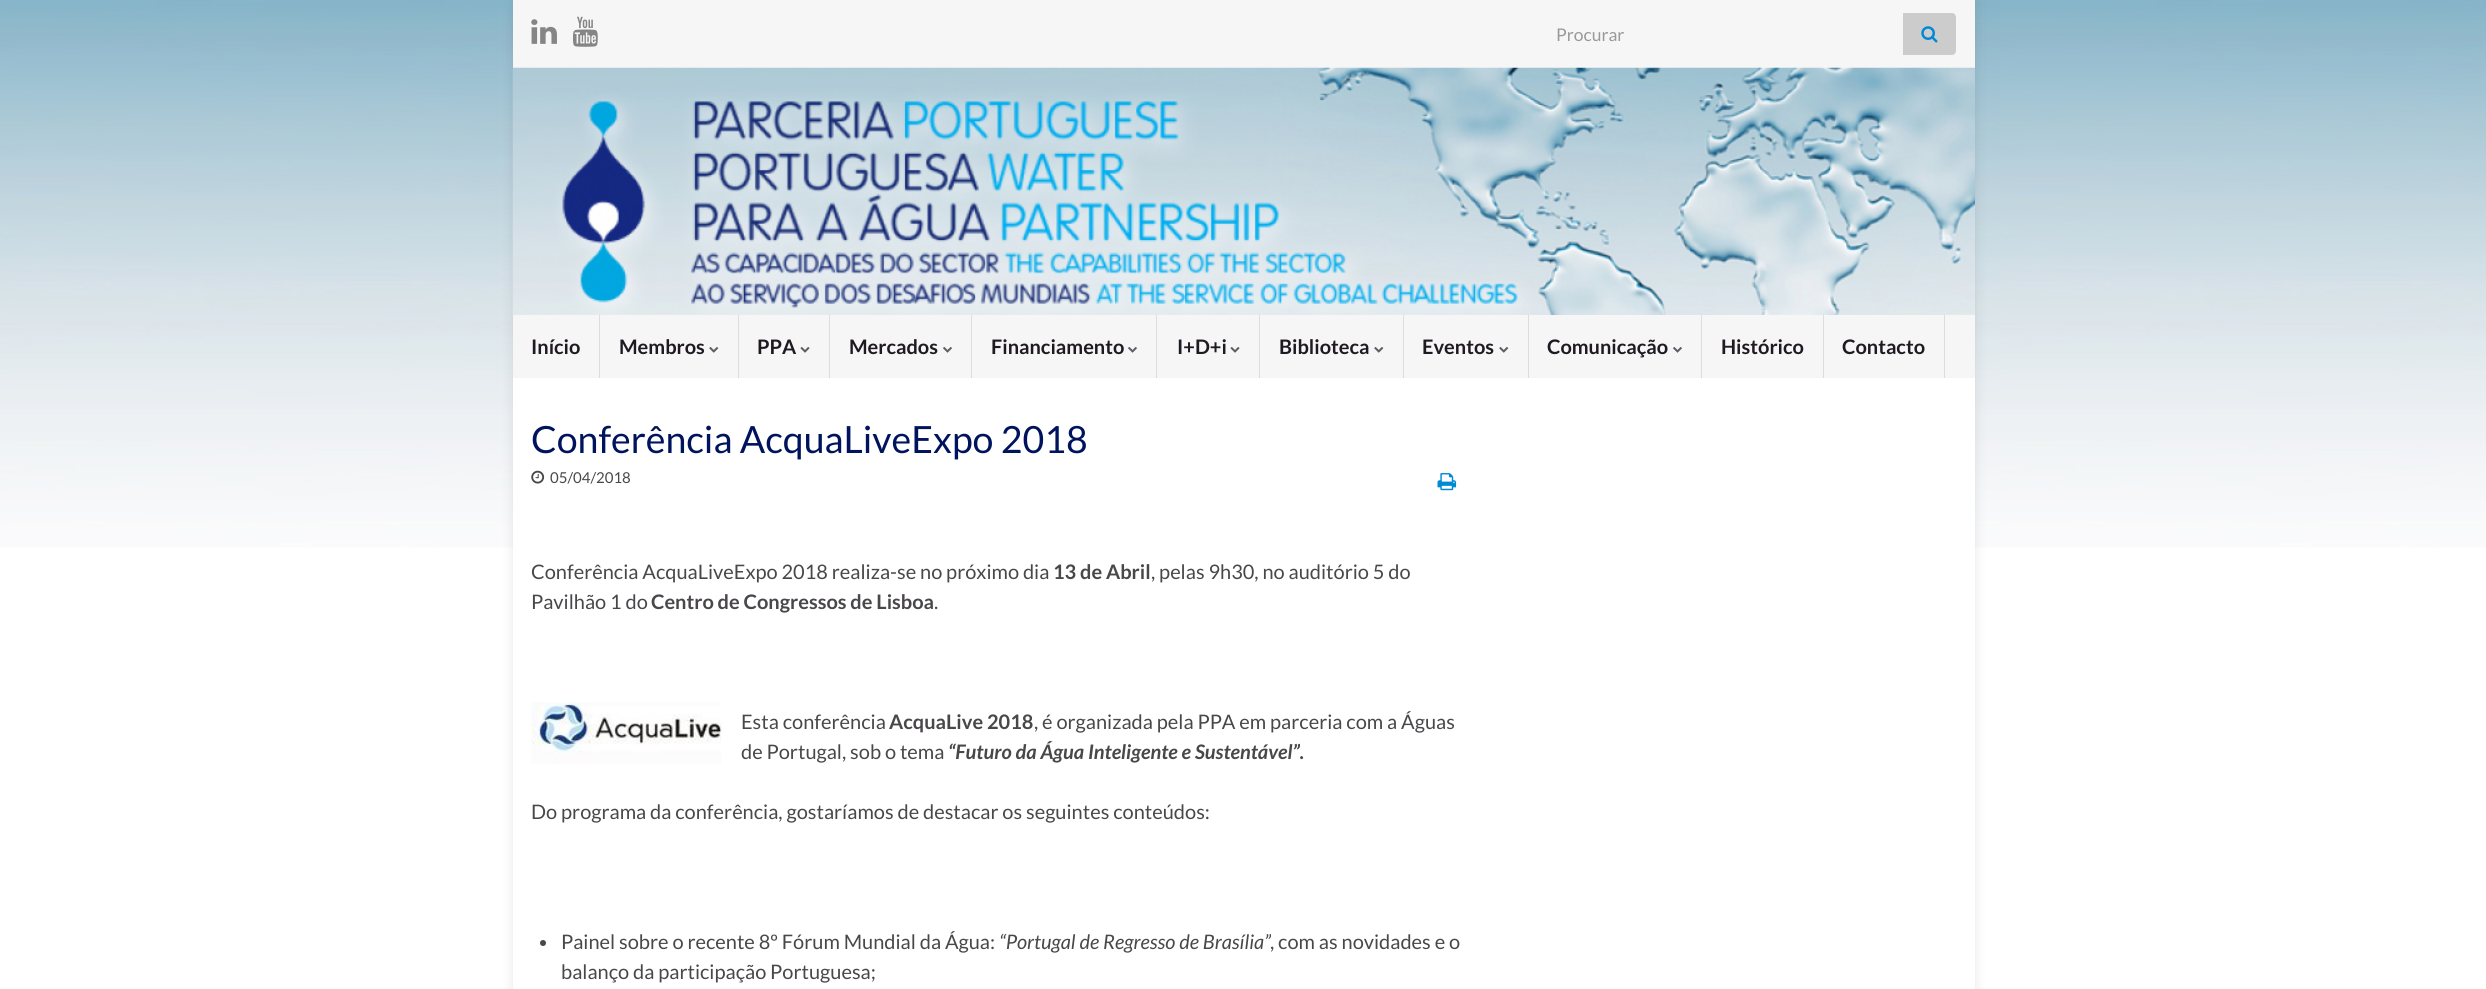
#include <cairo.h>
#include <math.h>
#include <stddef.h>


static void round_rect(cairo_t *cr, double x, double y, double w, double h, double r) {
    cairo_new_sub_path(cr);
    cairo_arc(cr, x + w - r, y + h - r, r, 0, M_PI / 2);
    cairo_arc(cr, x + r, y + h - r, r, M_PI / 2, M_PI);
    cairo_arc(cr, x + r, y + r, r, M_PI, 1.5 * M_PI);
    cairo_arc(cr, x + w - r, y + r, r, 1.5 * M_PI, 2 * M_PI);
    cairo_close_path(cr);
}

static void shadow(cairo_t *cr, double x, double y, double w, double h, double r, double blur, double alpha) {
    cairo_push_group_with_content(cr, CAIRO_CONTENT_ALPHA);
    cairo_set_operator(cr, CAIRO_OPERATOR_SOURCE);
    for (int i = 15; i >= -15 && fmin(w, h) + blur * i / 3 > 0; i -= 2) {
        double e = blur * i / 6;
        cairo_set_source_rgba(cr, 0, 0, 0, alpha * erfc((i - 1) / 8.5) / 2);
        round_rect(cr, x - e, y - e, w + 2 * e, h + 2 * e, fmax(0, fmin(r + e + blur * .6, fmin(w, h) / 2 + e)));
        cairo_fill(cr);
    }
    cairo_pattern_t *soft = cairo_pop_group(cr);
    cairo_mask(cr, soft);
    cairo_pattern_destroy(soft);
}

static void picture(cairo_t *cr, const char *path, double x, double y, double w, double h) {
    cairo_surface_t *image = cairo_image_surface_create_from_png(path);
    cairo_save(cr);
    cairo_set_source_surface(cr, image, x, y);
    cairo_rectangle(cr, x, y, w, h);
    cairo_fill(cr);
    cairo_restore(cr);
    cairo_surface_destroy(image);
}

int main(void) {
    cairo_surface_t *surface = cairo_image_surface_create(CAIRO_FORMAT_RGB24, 2486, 989);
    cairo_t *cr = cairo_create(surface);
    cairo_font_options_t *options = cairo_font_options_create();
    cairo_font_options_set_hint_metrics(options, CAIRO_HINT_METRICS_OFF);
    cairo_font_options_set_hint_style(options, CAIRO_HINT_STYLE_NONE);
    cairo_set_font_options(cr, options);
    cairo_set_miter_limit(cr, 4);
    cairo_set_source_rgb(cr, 1, 1, 1);
    cairo_paint(cr);
    picture(cr, "img1.png", 0, 0, 2486, 989);
    cairo_set_source_rgb(cr, 0, 0, 0);
    shadow(cr, 513, 0, 1462, 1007, 0, 6, 0.1);
    cairo_set_source_rgb(cr, 0.961, 0.961, 0.961);
    cairo_rectangle(cr, 513, 0, 1462, 68);
    cairo_fill(cr);
    picture(cr, "img2.png", 531, 19, 26, 25);
    picture(cr, "img3.png", 573, 16, 25, 31);
    cairo_select_font_face(cr, "Lato", CAIRO_FONT_SLANT_NORMAL, CAIRO_FONT_WEIGHT_NORMAL);
    cairo_set_font_size(cr, 17.5);
    cairo_set_source_rgb(cr, 0.6, 0.6, 0.6);
    cairo_move_to(cr, 1556, 41);
    cairo_show_text(cr, "Procurar");
    cairo_set_source_rgb(cr, 0.8, 0.8, 0.8);
    cairo_new_path(cr);
    cairo_move_to(cr, 1903, 13);
    cairo_line_to(cr, 1952, 13);
    cairo_curve_to(cr, 1954, 13, 1956, 15, 1956, 17);
    cairo_line_to(cr, 1956, 51);
    cairo_curve_to(cr, 1956, 53, 1954, 55, 1952, 55);
    cairo_line_to(cr, 1903, 55);
    cairo_close_path(cr);
    cairo_fill(cr);
    picture(cr, "img4.png", 1921, 26, 17, 17);
    picture(cr, "img5.png", 512, 67, 1463, 248);
    cairo_set_source_rgb(cr, 0.961, 0.961, 0.961);
    cairo_rectangle(cr, 513, 315, 1462, 63);
    cairo_fill(cr);
    cairo_set_source_rgb(cr, 0.867, 0.867, 0.867);
    cairo_rectangle(cr, 599, 315, 1, 63);
    cairo_fill(cr);
    cairo_select_font_face(cr, "Lato", CAIRO_FONT_SLANT_NORMAL, CAIRO_FONT_WEIGHT_BOLD);
    cairo_set_font_size(cr, 20);
    cairo_set_source_rgb(cr, 0.122, 0.102, 0.133);
    cairo_move_to(cr, 531, 354);
    cairo_show_text(cr, "Início");
    cairo_set_source_rgb(cr, 0.867, 0.867, 0.867);
    cairo_rectangle(cr, 738, 315, 1, 63);
    cairo_fill(cr);
    cairo_set_source_rgb(cr, 0.122, 0.102, 0.133);
    cairo_move_to(cr, 619, 354);
    cairo_show_text(cr, "Membros");
    picture(cr, "img6.png", 709, 347, 10, 6);
    cairo_set_source_rgb(cr, 0.867, 0.867, 0.867);
    cairo_rectangle(cr, 829, 315, 1, 63);
    cairo_fill(cr);
    cairo_set_source_rgb(cr, 0.122, 0.102, 0.133);
    cairo_move_to(cr, 757, 354);
    cairo_show_text(cr, "PPA");
    picture(cr, "img7.png", 800, 347, 10, 6);
    cairo_set_source_rgb(cr, 0.867, 0.867, 0.867);
    cairo_rectangle(cr, 971, 315, 1, 63);
    cairo_fill(cr);
    cairo_set_source_rgb(cr, 0.122, 0.102, 0.133);
    cairo_move_to(cr, 849, 354);
    cairo_show_text(cr, "Mercados");
    picture(cr, "img8.png", 943, 347, 9, 6);
    cairo_set_source_rgb(cr, 0.867, 0.867, 0.867);
    cairo_rectangle(cr, 1156, 315, 1, 63);
    cairo_fill(cr);
    cairo_set_source_rgb(cr, 0.122, 0.102, 0.133);
    cairo_move_to(cr, 991, 354);
    cairo_show_text(cr, "Financiamento");
    picture(cr, "img8.png", 1128, 347, 9, 6);
    cairo_set_source_rgb(cr, 0.867, 0.867, 0.867);
    cairo_rectangle(cr, 1259, 315, 1, 63);
    cairo_fill(cr);
    cairo_set_source_rgb(cr, 0.122, 0.102, 0.133);
    cairo_move_to(cr, 1177, 354);
    cairo_show_text(cr, "I+D+i");
    picture(cr, "img7.png", 1230, 347, 10, 6);
    cairo_set_source_rgb(cr, 0.867, 0.867, 0.867);
    cairo_rectangle(cr, 1403, 315, 1, 63);
    cairo_fill(cr);
    cairo_set_source_rgb(cr, 0.122, 0.102, 0.133);
    cairo_move_to(cr, 1279, 354);
    cairo_show_text(cr, "Biblioteca");
    picture(cr, "img6.png", 1374, 347, 10, 6);
    cairo_set_source_rgb(cr, 0.867, 0.867, 0.867);
    cairo_rectangle(cr, 1528, 315, 1, 63);
    cairo_fill(cr);
    cairo_set_source_rgb(cr, 0.122, 0.102, 0.133);
    cairo_move_to(cr, 1422, 354);
    cairo_show_text(cr, "Eventos");
    picture(cr, "img6.png", 1499, 347, 10, 6);
    cairo_set_source_rgb(cr, 0.867, 0.867, 0.867);
    cairo_rectangle(cr, 1701, 315, 1, 63);
    cairo_fill(cr);
    cairo_set_source_rgb(cr, 0.122, 0.102, 0.133);
    cairo_move_to(cr, 1547, 354);
    cairo_show_text(cr, "Comunicação");
    picture(cr, "img8.png", 1673, 347, 9, 6);
    cairo_set_source_rgb(cr, 0.867, 0.867, 0.867);
    cairo_rectangle(cr, 1823, 315, 1, 63);
    cairo_fill(cr);
    cairo_set_source_rgb(cr, 0.122, 0.102, 0.133);
    cairo_move_to(cr, 1721, 354);
    cairo_show_text(cr, "Histórico");
    cairo_set_source_rgb(cr, 0.867, 0.867, 0.867);
    cairo_rectangle(cr, 1944, 315, 1, 63);
    cairo_fill(cr);
    cairo_set_source_rgb(cr, 0.122, 0.102, 0.133);
    cairo_move_to(cr, 1842, 354);
    cairo_show_text(cr, "Contacto");
    cairo_set_source_rgb(cr, 1, 1, 1);
    cairo_rectangle(cr, 513, 378, 1462, 611);
    cairo_fill(cr);
    cairo_select_font_face(cr, "Lato", CAIRO_FONT_SLANT_NORMAL, CAIRO_FONT_WEIGHT_NORMAL);
    cairo_set_font_size(cr, 37.5);
    cairo_set_source_rgb(cr, 0, 0.075, 0.365);
    cairo_move_to(cr, 531, 453);
    cairo_show_text(cr, "Conferência AcquaLiveExpo 2018");
    picture(cr, "img9.png", 531, 470, 14, 14);
    cairo_set_font_size(cr, 15);
    cairo_set_source_rgb(cr, 0.29, 0.278, 0.294);
    cairo_move_to(cr, 550, 483);
    cairo_show_text(cr, "05/04/2018");
    picture(cr, "img10.png", 1437, 473, 20, 18);
    cairo_set_font_size(cr, 20);
    cairo_move_to(cr, 531, 579);
    cairo_show_text(cr, "Conferência AcquaLiveExpo 2018 realiza-se no próximo dia");
    cairo_select_font_face(cr, "Lato", CAIRO_FONT_SLANT_NORMAL, CAIRO_FONT_WEIGHT_BOLD);
    cairo_move_to(cr, 1053, 579);
    cairo_show_text(cr, "13 de Abril");
    cairo_select_font_face(cr, "Lato", CAIRO_FONT_SLANT_NORMAL, CAIRO_FONT_WEIGHT_NORMAL);
    cairo_move_to(cr, 1151, 579);
    cairo_show_text(cr, ", pelas 9h30, no auditório 5 do");
    cairo_move_to(cr, 531, 609);
    cairo_show_text(cr, "Pavilhão 1 do");
    cairo_select_font_face(cr, "Lato", CAIRO_FONT_SLANT_NORMAL, CAIRO_FONT_WEIGHT_BOLD);
    cairo_move_to(cr, 651, 609);
    cairo_show_text(cr, "Centro de Congressos de Lisboa");
    cairo_select_font_face(cr, "Lato", CAIRO_FONT_SLANT_NORMAL, CAIRO_FONT_WEIGHT_NORMAL);
    cairo_move_to(cr, 934, 609);
    cairo_show_text(cr, ".");
    picture(cr, "img11.png", 531, 702, 191, 62);
    cairo_move_to(cr, 741, 729);
    cairo_show_text(cr, "Esta conferência");
    cairo_select_font_face(cr, "Lato", CAIRO_FONT_SLANT_NORMAL, CAIRO_FONT_WEIGHT_BOLD);
    cairo_move_to(cr, 889, 729);
    cairo_show_text(cr, "AcquaLive 2018");
    cairo_select_font_face(cr, "Lato", CAIRO_FONT_SLANT_NORMAL, CAIRO_FONT_WEIGHT_NORMAL);
    cairo_move_to(cr, 1034, 729);
    cairo_show_text(cr, ", é organizada pela PPA em parceria com a Águas");
    cairo_move_to(cr, 741, 759);
    cairo_show_text(cr, "de Portugal, sob o tema");
    cairo_select_font_face(cr, "Lato", CAIRO_FONT_SLANT_ITALIC, CAIRO_FONT_WEIGHT_BOLD);
    cairo_move_to(cr, 948, 759);
    cairo_show_text(cr, "“Futuro da Água Inteligente e Sustentável”.");
    cairo_select_font_face(cr, "Lato", CAIRO_FONT_SLANT_NORMAL, CAIRO_FONT_WEIGHT_NORMAL);
    cairo_move_to(cr, 531, 819);
    cairo_show_text(cr, "Do programa da conferência, gostaríamos de destacar os seguintes conteúdos:");
    cairo_new_path(cr);
    cairo_arc(cr, 543, 943, 3, 0, 2 * M_PI);
    cairo_fill(cr);
    cairo_move_to(cr, 561, 949);
    cairo_show_text(cr, "Painel sobre o recente 8º Fórum Mundial da Água:");
    cairo_select_font_face(cr, "Lato", CAIRO_FONT_SLANT_ITALIC, CAIRO_FONT_WEIGHT_NORMAL);
    cairo_move_to(cr, 999, 949);
    cairo_show_text(cr, "“Portugal de Regresso de Brasília”");
    cairo_select_font_face(cr, "Lato", CAIRO_FONT_SLANT_NORMAL, CAIRO_FONT_WEIGHT_NORMAL);
    cairo_move_to(cr, 1270, 949);
    cairo_show_text(cr, ", com as novidades e o");
    cairo_move_to(cr, 561, 979);
    cairo_show_text(cr, "balanço da participação Portuguesa;");
    cairo_surface_write_to_png(surface, "page.png");
    cairo_font_options_destroy(options);
    cairo_destroy(cr);
    cairo_surface_destroy(surface);
    return 0;
}
